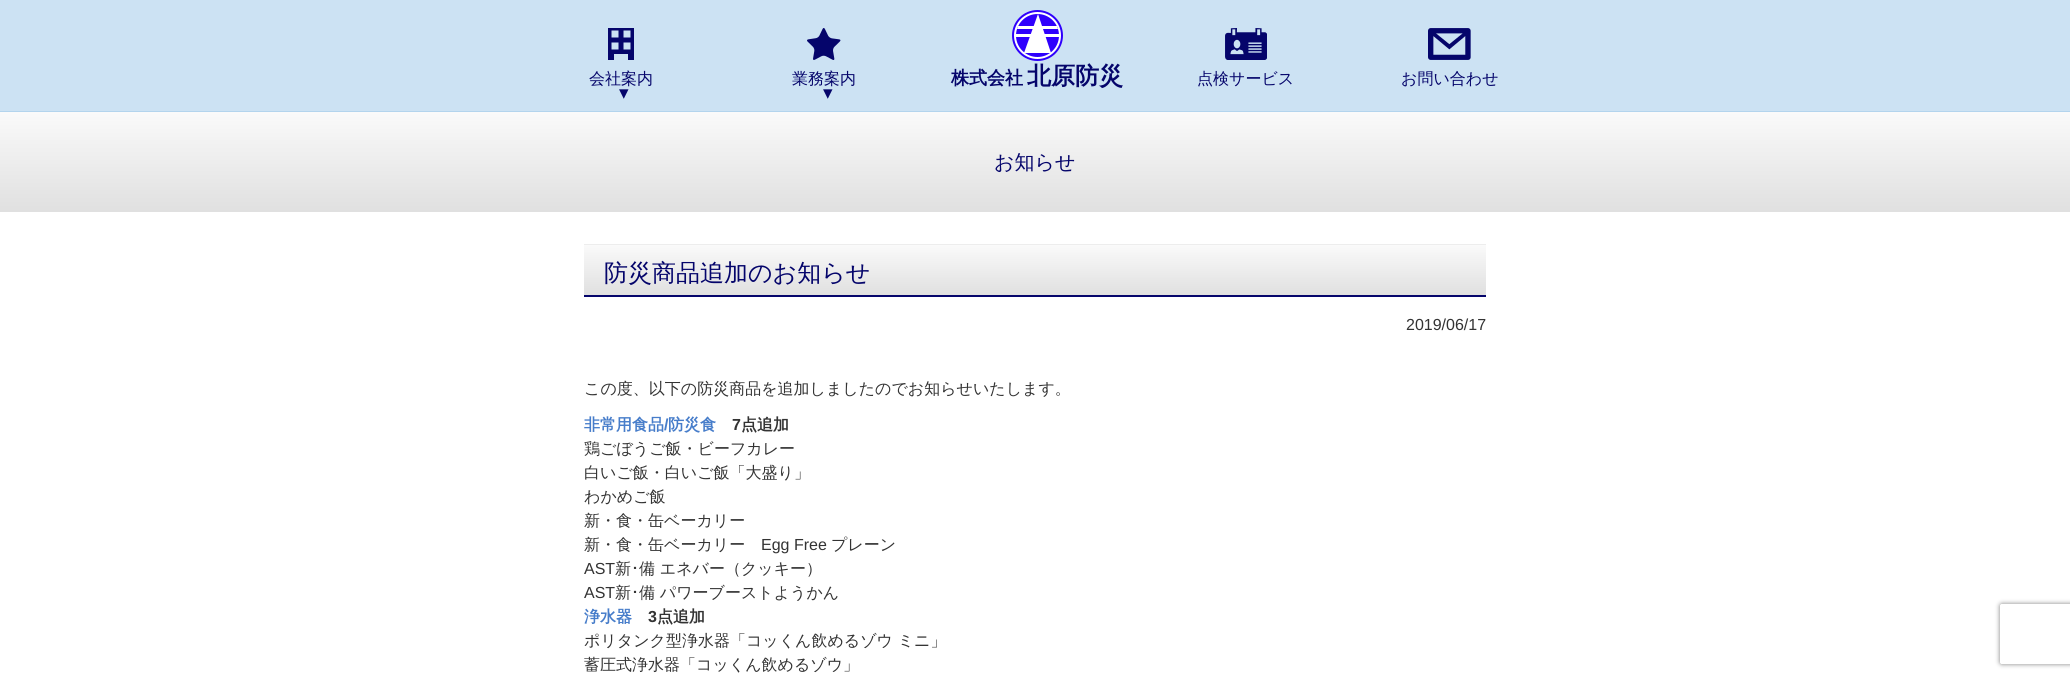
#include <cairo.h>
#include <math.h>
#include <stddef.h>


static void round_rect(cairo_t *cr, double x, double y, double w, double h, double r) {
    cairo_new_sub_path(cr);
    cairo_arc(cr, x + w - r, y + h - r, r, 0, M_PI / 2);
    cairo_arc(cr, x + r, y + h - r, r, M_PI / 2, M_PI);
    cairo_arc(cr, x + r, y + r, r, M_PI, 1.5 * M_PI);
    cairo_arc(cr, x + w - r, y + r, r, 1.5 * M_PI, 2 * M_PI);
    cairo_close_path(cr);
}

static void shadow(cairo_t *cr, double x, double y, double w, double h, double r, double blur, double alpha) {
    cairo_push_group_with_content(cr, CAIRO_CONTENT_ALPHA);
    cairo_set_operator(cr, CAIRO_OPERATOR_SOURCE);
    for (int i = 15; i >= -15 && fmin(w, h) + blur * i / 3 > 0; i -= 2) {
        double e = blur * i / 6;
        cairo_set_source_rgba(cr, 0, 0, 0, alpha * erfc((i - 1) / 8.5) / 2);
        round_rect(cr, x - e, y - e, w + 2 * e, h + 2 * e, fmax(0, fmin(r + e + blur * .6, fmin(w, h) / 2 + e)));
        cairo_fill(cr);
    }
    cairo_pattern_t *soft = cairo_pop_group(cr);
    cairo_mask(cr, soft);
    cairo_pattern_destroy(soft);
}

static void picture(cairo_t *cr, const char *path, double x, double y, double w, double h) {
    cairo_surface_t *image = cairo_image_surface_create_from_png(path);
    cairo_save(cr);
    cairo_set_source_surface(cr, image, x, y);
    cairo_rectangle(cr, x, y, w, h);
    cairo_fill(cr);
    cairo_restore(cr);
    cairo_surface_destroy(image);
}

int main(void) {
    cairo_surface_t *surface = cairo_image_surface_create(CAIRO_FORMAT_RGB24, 2070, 678);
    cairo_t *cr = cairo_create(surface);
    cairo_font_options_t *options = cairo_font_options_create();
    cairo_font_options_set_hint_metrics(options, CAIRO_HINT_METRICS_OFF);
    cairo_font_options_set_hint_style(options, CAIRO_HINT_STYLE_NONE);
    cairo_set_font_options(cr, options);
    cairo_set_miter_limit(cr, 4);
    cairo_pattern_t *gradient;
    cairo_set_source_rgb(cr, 1, 1, 1);
    cairo_paint(cr);
    cairo_set_source_rgb(cr, 0.8, 0.886, 0.953);
    cairo_rectangle(cr, 0, 0, 2070, 111);
    cairo_fill(cr);
    cairo_set_source_rgb(cr, 0.702, 0.831, 0.929);
    cairo_rectangle(cr, 0, 111, 2070, 1);
    cairo_fill(cr);
    picture(cr, "img1.png", 608, 28, 26, 32);
    cairo_select_font_face(cr, "WenQuanYi Zen Hei Medium", CAIRO_FONT_SLANT_NORMAL, CAIRO_FONT_WEIGHT_NORMAL);
    cairo_set_font_size(cr, 16);
    cairo_set_source_rgb(cr, 0.02, 0.02, 0.42);
    cairo_move_to(cr, 589, 84);
    cairo_show_text(cr, "会社案内");
    cairo_select_font_face(cr, "DejaVu Sans", CAIRO_FONT_SLANT_NORMAL, CAIRO_FONT_WEIGHT_NORMAL);
    cairo_set_font_size(cr, 19);
    cairo_move_to(cr, 619, 99);
    cairo_show_text(cr, "▾");
    picture(cr, "img2.png", 807, 28, 34, 32);
    cairo_select_font_face(cr, "WenQuanYi Zen Hei Medium", CAIRO_FONT_SLANT_NORMAL, CAIRO_FONT_WEIGHT_NORMAL);
    cairo_set_font_size(cr, 16);
    cairo_move_to(cr, 792, 84);
    cairo_show_text(cr, "業務案内");
    cairo_select_font_face(cr, "DejaVu Sans", CAIRO_FONT_SLANT_NORMAL, CAIRO_FONT_WEIGHT_NORMAL);
    cairo_set_font_size(cr, 19);
    cairo_move_to(cr, 823, 99);
    cairo_show_text(cr, "▾");
    cairo_set_source_rgb(cr, 0.184, 0, 0.988);
    cairo_new_path(cr);
    cairo_arc(cr, 1037.5, 35.5, 25.5, 0, 2 * M_PI);
    cairo_fill(cr);
    cairo_set_source_rgb(cr, 1, 1, 1);
    cairo_arc(cr, 1037.5, 35.5, 23.5, 0, 2 * M_PI);
    cairo_fill(cr);
    cairo_set_source_rgb(cr, 0.184, 0, 0.992);
    cairo_arc(cr, 1037.5, 35.5, 21.5, 0, 2 * M_PI);
    cairo_fill(cr);
    cairo_set_source_rgb(cr, 1, 1, 1);
    cairo_new_path(cr);
    cairo_move_to(cr, 1057, 26);
    cairo_line_to(cr, 1018, 26);
    cairo_line_to(cr, 1017, 29);
    cairo_line_to(cr, 1058, 29);
    cairo_close_path(cr);
    cairo_move_to(cr, 1059, 36);
    cairo_line_to(cr, 1059, 34);
    cairo_line_to(cr, 1016, 34);
    cairo_line_to(cr, 1016, 37);
    cairo_line_to(cr, 1059, 37);
    cairo_close_path(cr);
    cairo_move_to(cr, 1038, 14);
    cairo_line_to(cr, 1024, 53);
    cairo_line_to(cr, 1051, 53);
    cairo_close_path(cr);
    cairo_fill(cr);
    cairo_select_font_face(cr, "WenQuanYi Zen Hei", CAIRO_FONT_SLANT_NORMAL, CAIRO_FONT_WEIGHT_BOLD);
    cairo_set_font_size(cr, 18);
    cairo_set_source_rgb(cr, 0.02, 0.02, 0.42);
    cairo_move_to(cr, 951, 84);
    cairo_show_text(cr, "株式会社");
    cairo_set_font_size(cr, 24);
    cairo_move_to(cr, 1027, 84);
    cairo_show_text(cr, "北原防災");
    picture(cr, "img3.png", 1225, 28, 42, 32);
    cairo_select_font_face(cr, "WenQuanYi Zen Hei Medium", CAIRO_FONT_SLANT_NORMAL, CAIRO_FONT_WEIGHT_NORMAL);
    cairo_set_font_size(cr, 16);
    cairo_move_to(cr, 1197, 84);
    cairo_show_text(cr, "点検サービス");
    picture(cr, "img4.png", 1428, 28, 43, 32);
    cairo_move_to(cr, 1401, 84);
    cairo_show_text(cr, "お問い合わせ");
    gradient = cairo_pattern_create_linear(1035, 112, 1035, 212);
    cairo_pattern_add_color_stop_rgba(gradient, 0, 0.98, 0.98, 0.98, 1);
    cairo_pattern_add_color_stop_rgba(gradient, 1, 0.878, 0.878, 0.878, 1);
    cairo_set_source(cr, gradient);
    cairo_pattern_destroy(gradient);
    cairo_rectangle(cr, 0, 112, 2070, 100);
    cairo_fill(cr);
    cairo_set_font_size(cr, 20);
    cairo_set_source_rgb(cr, 0.02, 0.02, 0.42);
    cairo_move_to(cr, 994, 169);
    cairo_show_text(cr, "お知らせ");
    gradient = cairo_pattern_create_linear(1035, 245, 1035, 295);
    cairo_pattern_add_color_stop_rgba(gradient, 0, 0.98, 0.98, 0.98, 1);
    cairo_pattern_add_color_stop_rgba(gradient, 1, 0.878, 0.878, 0.878, 1);
    cairo_set_source(cr, gradient);
    cairo_pattern_destroy(gradient);
    cairo_rectangle(cr, 584, 245, 902, 50);
    cairo_fill(cr);
    cairo_set_source_rgb(cr, 0.929, 0.929, 0.929);
    cairo_rectangle(cr, 584, 244, 902, 1);
    cairo_fill(cr);
    cairo_set_source_rgb(cr, 0.02, 0.02, 0.42);
    cairo_rectangle(cr, 584, 295, 902, 2);
    cairo_fill(cr);
    cairo_set_font_size(cr, 24);
    cairo_move_to(cr, 604, 281);
    cairo_show_text(cr, "防災商品追加のお知らせ");
    cairo_select_font_face(cr, "Liberation Sans", CAIRO_FONT_SLANT_NORMAL, CAIRO_FONT_WEIGHT_NORMAL);
    cairo_set_font_size(cr, 16);
    cairo_set_source_rgb(cr, 0.2, 0.2, 0.2);
    cairo_move_to(cr, 1406, 330);
    cairo_show_text(cr, "2019/06/17");
    cairo_select_font_face(cr, "WenQuanYi Zen Hei Medium", CAIRO_FONT_SLANT_NORMAL, CAIRO_FONT_WEIGHT_NORMAL);
    cairo_move_to(cr, 584, 394);
    cairo_show_text(cr, "この度、以下の防災商品を追加しましたのでお知らせいたします。");
    cairo_select_font_face(cr, "WenQuanYi Zen Hei", CAIRO_FONT_SLANT_NORMAL, CAIRO_FONT_WEIGHT_BOLD);
    cairo_set_source_rgb(cr, 0.278, 0.49, 0.792);
    cairo_move_to(cr, 584, 430);
    cairo_show_text(cr, "非常用食品");
    cairo_select_font_face(cr, "Liberation Sans", CAIRO_FONT_SLANT_NORMAL, CAIRO_FONT_WEIGHT_BOLD);
    cairo_move_to(cr, 664, 430);
    cairo_show_text(cr, "/");
    cairo_select_font_face(cr, "WenQuanYi Zen Hei", CAIRO_FONT_SLANT_NORMAL, CAIRO_FONT_WEIGHT_BOLD);
    cairo_move_to(cr, 668, 430);
    cairo_show_text(cr, "防災食");
    cairo_select_font_face(cr, "Liberation Sans", CAIRO_FONT_SLANT_NORMAL, CAIRO_FONT_WEIGHT_BOLD);
    cairo_set_source_rgb(cr, 0.2, 0.2, 0.2);
    cairo_move_to(cr, 732, 430);
    cairo_show_text(cr, "7");
    cairo_select_font_face(cr, "WenQuanYi Zen Hei", CAIRO_FONT_SLANT_NORMAL, CAIRO_FONT_WEIGHT_BOLD);
    cairo_move_to(cr, 741, 430);
    cairo_show_text(cr, "点追加");
    cairo_select_font_face(cr, "WenQuanYi Zen Hei Medium", CAIRO_FONT_SLANT_NORMAL, CAIRO_FONT_WEIGHT_NORMAL);
    cairo_move_to(cr, 584, 454);
    cairo_show_text(cr, "鶏ごぼうご飯・ビーフカレー");
    cairo_move_to(cr, 584, 478);
    cairo_show_text(cr, "白いご飯・白いご飯「大盛り」");
    cairo_move_to(cr, 584, 502);
    cairo_show_text(cr, "わかめご飯");
    cairo_move_to(cr, 584, 526);
    cairo_show_text(cr, "新・食・缶ベーカリー");
    cairo_move_to(cr, 584, 550);
    cairo_show_text(cr, "新・食・缶ベーカリー");
    cairo_select_font_face(cr, "Liberation Sans", CAIRO_FONT_SLANT_NORMAL, CAIRO_FONT_WEIGHT_NORMAL);
    cairo_move_to(cr, 761, 550);
    cairo_show_text(cr, "Egg Free");
    cairo_select_font_face(cr, "WenQuanYi Zen Hei Medium", CAIRO_FONT_SLANT_NORMAL, CAIRO_FONT_WEIGHT_NORMAL);
    cairo_move_to(cr, 831, 550);
    cairo_show_text(cr, "プレーン");
    cairo_select_font_face(cr, "Liberation Sans", CAIRO_FONT_SLANT_NORMAL, CAIRO_FONT_WEIGHT_NORMAL);
    cairo_move_to(cr, 584, 574);
    cairo_show_text(cr, "AST");
    cairo_select_font_face(cr, "WenQuanYi Zen Hei Medium", CAIRO_FONT_SLANT_NORMAL, CAIRO_FONT_WEIGHT_NORMAL);
    cairo_move_to(cr, 615, 574);
    cairo_show_text(cr, "新");
    cairo_select_font_face(cr, "IPAPGothic", CAIRO_FONT_SLANT_NORMAL, CAIRO_FONT_WEIGHT_NORMAL);
    cairo_move_to(cr, 631, 574);
    cairo_show_text(cr, "･");
    cairo_select_font_face(cr, "WenQuanYi Zen Hei Medium", CAIRO_FONT_SLANT_NORMAL, CAIRO_FONT_WEIGHT_NORMAL);
    cairo_move_to(cr, 639, 574);
    cairo_show_text(cr, "備 エネバー（クッキー）");
    cairo_select_font_face(cr, "Liberation Sans", CAIRO_FONT_SLANT_NORMAL, CAIRO_FONT_WEIGHT_NORMAL);
    cairo_move_to(cr, 584, 598);
    cairo_show_text(cr, "AST");
    cairo_select_font_face(cr, "WenQuanYi Zen Hei Medium", CAIRO_FONT_SLANT_NORMAL, CAIRO_FONT_WEIGHT_NORMAL);
    cairo_move_to(cr, 615, 598);
    cairo_show_text(cr, "新");
    cairo_select_font_face(cr, "IPAPGothic", CAIRO_FONT_SLANT_NORMAL, CAIRO_FONT_WEIGHT_NORMAL);
    cairo_move_to(cr, 631, 598);
    cairo_show_text(cr, "･");
    cairo_select_font_face(cr, "WenQuanYi Zen Hei Medium", CAIRO_FONT_SLANT_NORMAL, CAIRO_FONT_WEIGHT_NORMAL);
    cairo_move_to(cr, 639, 598);
    cairo_show_text(cr, "備 パワーブーストようかん");
    cairo_select_font_face(cr, "WenQuanYi Zen Hei", CAIRO_FONT_SLANT_NORMAL, CAIRO_FONT_WEIGHT_BOLD);
    cairo_set_source_rgb(cr, 0.278, 0.49, 0.792);
    cairo_move_to(cr, 584, 622);
    cairo_show_text(cr, "浄水器");
    cairo_select_font_face(cr, "Liberation Sans", CAIRO_FONT_SLANT_NORMAL, CAIRO_FONT_WEIGHT_BOLD);
    cairo_set_source_rgb(cr, 0.2, 0.2, 0.2);
    cairo_move_to(cr, 648, 622);
    cairo_show_text(cr, "3");
    cairo_select_font_face(cr, "WenQuanYi Zen Hei", CAIRO_FONT_SLANT_NORMAL, CAIRO_FONT_WEIGHT_BOLD);
    cairo_move_to(cr, 657, 622);
    cairo_show_text(cr, "点追加");
    cairo_select_font_face(cr, "WenQuanYi Zen Hei Medium", CAIRO_FONT_SLANT_NORMAL, CAIRO_FONT_WEIGHT_NORMAL);
    cairo_move_to(cr, 584, 646);
    cairo_show_text(cr, "ポリタンク型浄水器「コッくん飲めるゾウ ミニ」");
    cairo_move_to(cr, 584, 670);
    cairo_show_text(cr, "蓄圧式浄水器「コッくん飲めるゾウ」");
    cairo_save(cr);
    cairo_set_fill_rule(cr, CAIRO_FILL_RULE_EVEN_ODD);
    cairo_new_path(cr);
    cairo_move_to(cr, 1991, 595);
    cairo_line_to(cr, 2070, 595);
    cairo_line_to(cr, 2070, 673);
    cairo_line_to(cr, 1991, 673);
    cairo_close_path(cr);
    cairo_move_to(cr, 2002, 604);
    cairo_line_to(cr, 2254, 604);
    cairo_curve_to(cr, 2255, 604, 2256, 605, 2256, 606);
    cairo_line_to(cr, 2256, 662);
    cairo_curve_to(cr, 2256, 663, 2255, 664, 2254, 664);
    cairo_line_to(cr, 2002, 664);
    cairo_curve_to(cr, 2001, 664, 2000, 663, 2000, 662);
    cairo_line_to(cr, 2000, 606);
    cairo_curve_to(cr, 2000, 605, 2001, 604, 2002, 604);
    cairo_close_path(cr);
    cairo_clip(cr);
    cairo_set_source_rgb(cr, 0.502, 0.502, 0.502);
    shadow(cr, 2000, 604, 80, 60, 2, 2.5, 1);
    cairo_restore(cr);
    cairo_surface_write_to_png(surface, "page.png");
    cairo_font_options_destroy(options);
    cairo_destroy(cr);
    cairo_surface_destroy(surface);
    return 0;
}
